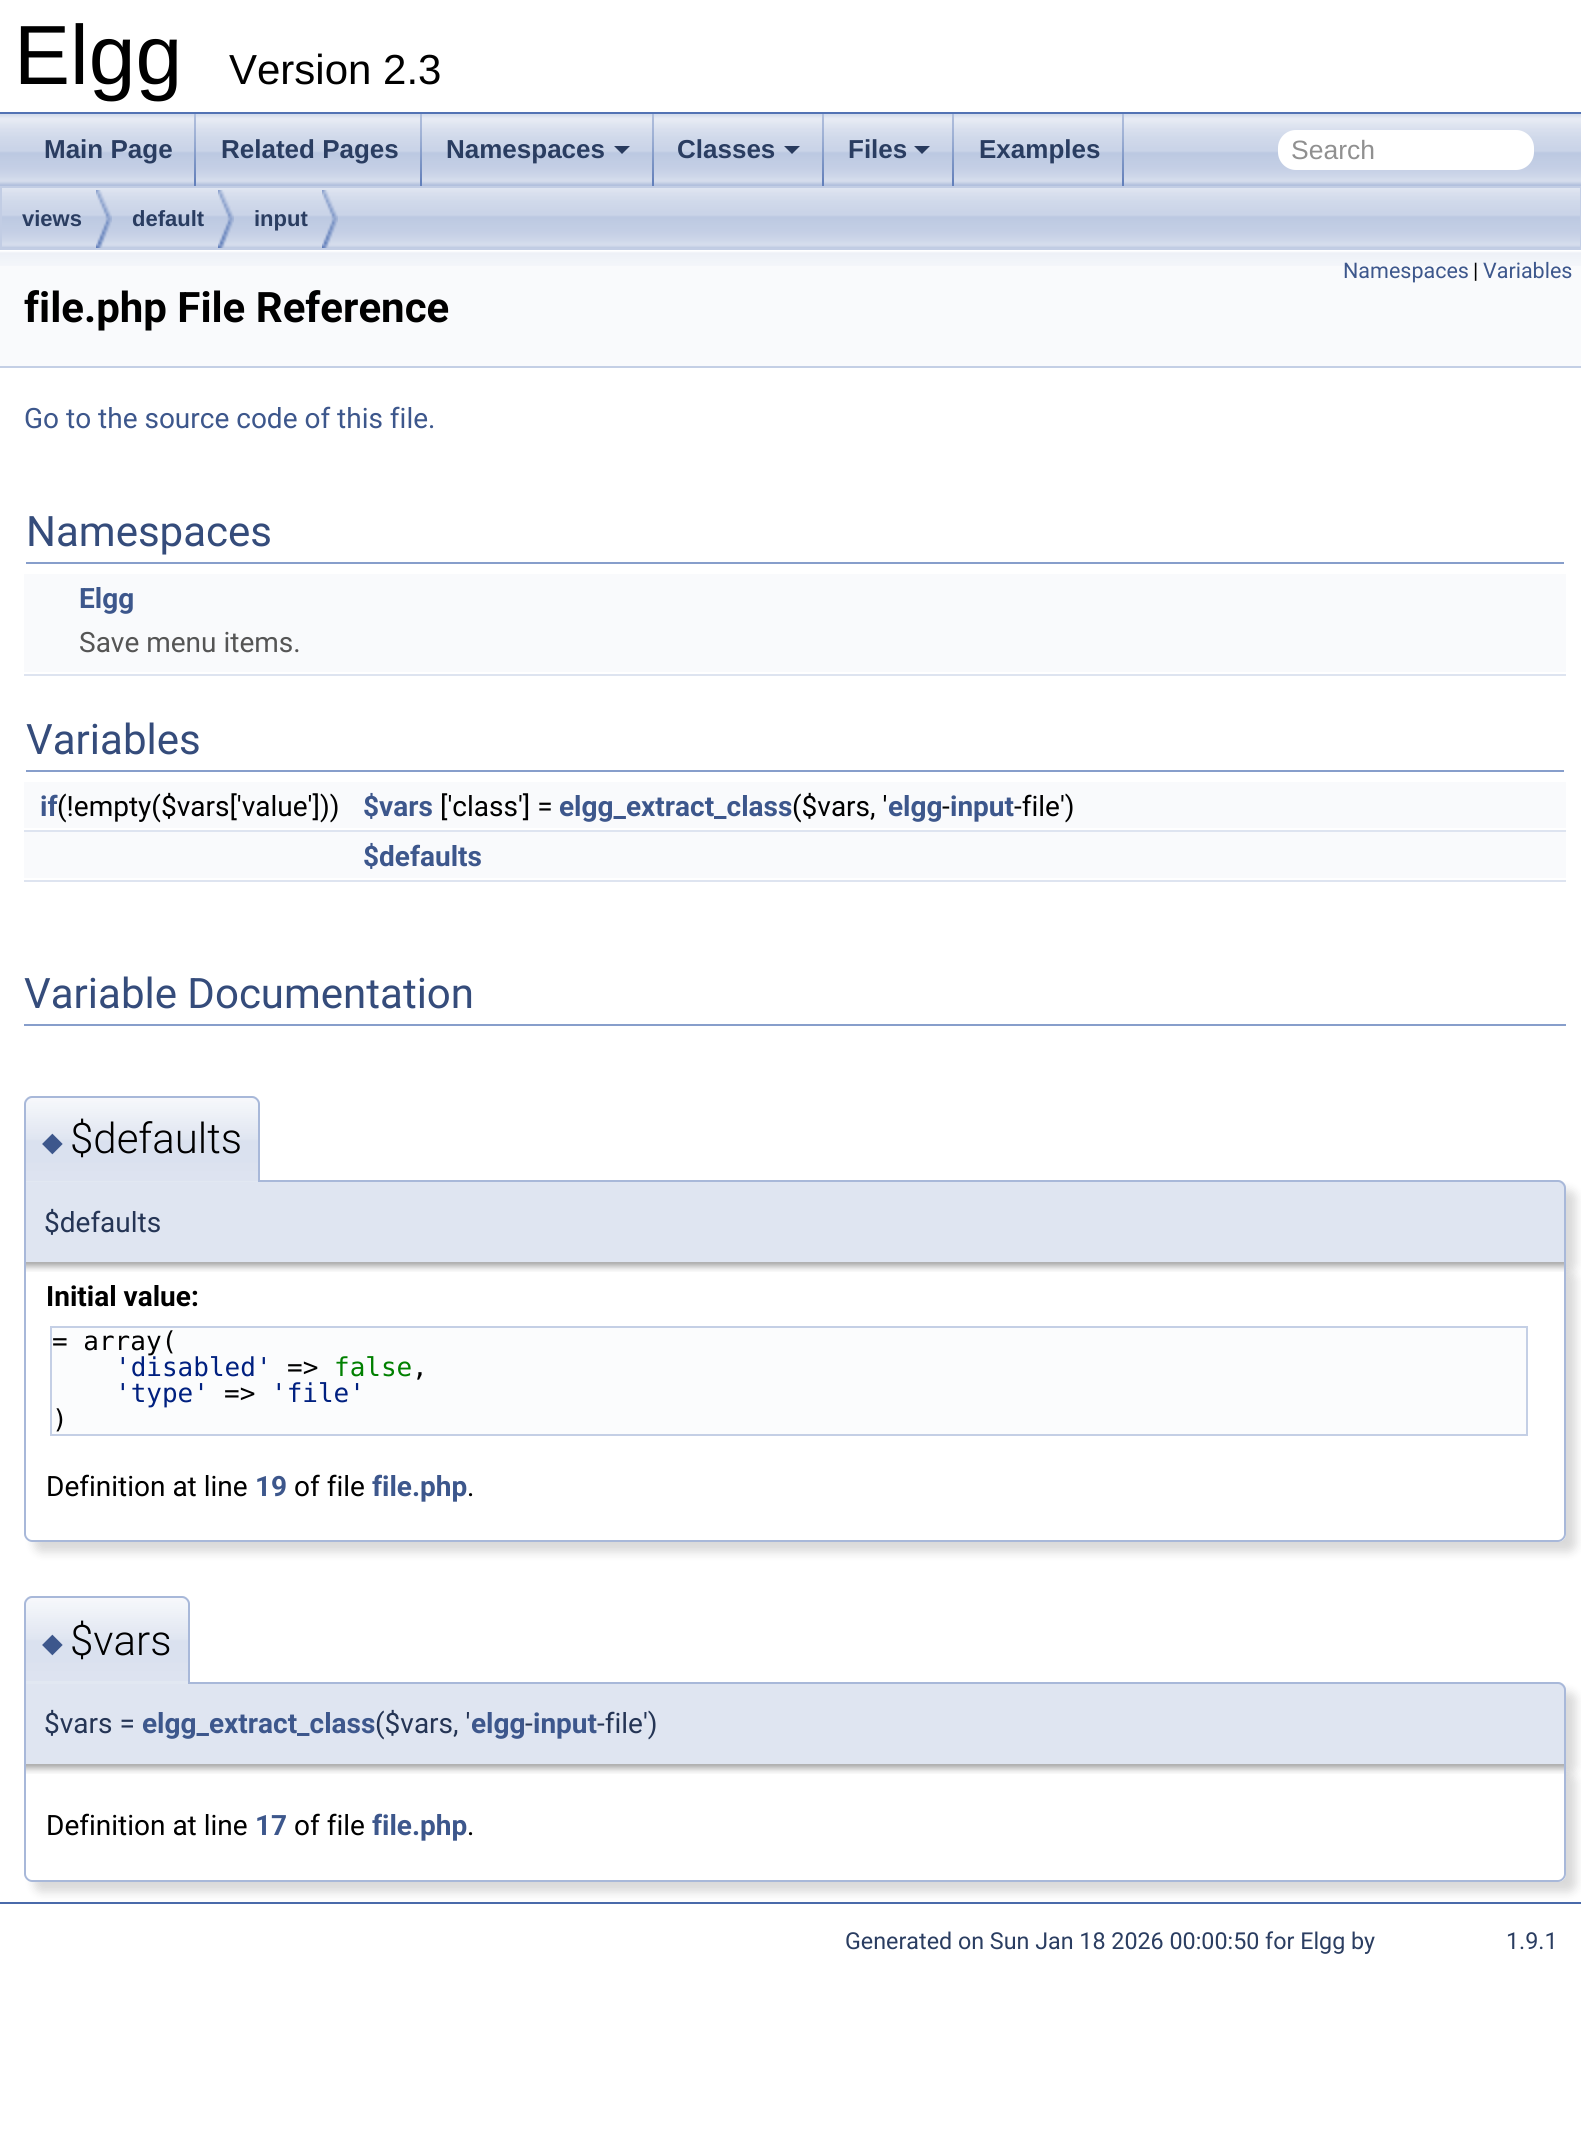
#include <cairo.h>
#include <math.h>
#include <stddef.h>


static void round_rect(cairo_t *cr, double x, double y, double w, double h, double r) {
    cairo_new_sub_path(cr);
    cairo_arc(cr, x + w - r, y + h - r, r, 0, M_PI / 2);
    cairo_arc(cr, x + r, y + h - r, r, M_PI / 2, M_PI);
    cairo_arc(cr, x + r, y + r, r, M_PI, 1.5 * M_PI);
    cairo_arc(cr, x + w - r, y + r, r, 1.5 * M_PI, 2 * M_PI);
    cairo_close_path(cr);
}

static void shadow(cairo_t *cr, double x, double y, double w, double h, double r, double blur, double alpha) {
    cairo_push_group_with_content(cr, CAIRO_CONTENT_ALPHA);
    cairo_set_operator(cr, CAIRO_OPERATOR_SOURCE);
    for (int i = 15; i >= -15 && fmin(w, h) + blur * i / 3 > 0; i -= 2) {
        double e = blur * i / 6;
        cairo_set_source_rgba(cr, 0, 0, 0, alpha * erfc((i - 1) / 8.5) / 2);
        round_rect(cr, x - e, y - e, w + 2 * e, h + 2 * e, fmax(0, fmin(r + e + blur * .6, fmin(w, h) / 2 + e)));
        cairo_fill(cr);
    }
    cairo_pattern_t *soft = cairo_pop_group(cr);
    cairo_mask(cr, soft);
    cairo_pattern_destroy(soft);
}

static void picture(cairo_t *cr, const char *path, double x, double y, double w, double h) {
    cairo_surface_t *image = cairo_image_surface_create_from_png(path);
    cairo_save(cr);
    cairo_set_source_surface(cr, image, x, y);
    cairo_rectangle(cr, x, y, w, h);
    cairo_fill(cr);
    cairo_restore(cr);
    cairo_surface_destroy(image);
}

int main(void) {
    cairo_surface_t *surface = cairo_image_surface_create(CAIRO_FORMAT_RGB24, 1581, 2154);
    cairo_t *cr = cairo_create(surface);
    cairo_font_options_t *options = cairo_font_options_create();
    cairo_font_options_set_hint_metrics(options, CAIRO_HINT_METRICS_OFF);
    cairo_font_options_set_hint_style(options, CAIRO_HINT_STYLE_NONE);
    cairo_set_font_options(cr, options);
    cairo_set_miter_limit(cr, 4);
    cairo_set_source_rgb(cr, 1, 1, 1);
    cairo_paint(cr);
    cairo_set_source_rgb(cr, 0.325, 0.451, 0.706);
    cairo_rectangle(cr, 0, 112, 1581, 2);
    cairo_fill(cr);
    cairo_select_font_face(cr, "Liberation Sans", CAIRO_FONT_SLANT_NORMAL, CAIRO_FONT_WEIGHT_NORMAL);
    cairo_set_font_size(cr, 84);
    cairo_set_source_rgb(cr, 0, 0, 0);
    cairo_move_to(cr, 14, 84);
    cairo_show_text(cr, "Elgg");
    cairo_set_font_size(cr, 42);
    cairo_move_to(cr, 229, 84);
    cairo_show_text(cr, "Version 2.3");
    picture(cr, "img1.png", 0, 114, 1581, 72);
    picture(cr, "img2.png", 194, 114, 2, 72);
    cairo_select_font_face(cr, "Liberation Sans", CAIRO_FONT_SLANT_NORMAL, CAIRO_FONT_WEIGHT_BOLD);
    cairo_set_font_size(cr, 26);
    cairo_set_source_rgb(cr, 0.165, 0.239, 0.38);
    cairo_move_to(cr, 44, 158);
    cairo_show_text(cr, "Main Page");
    picture(cr, "img2.png", 420, 114, 2, 72);
    cairo_move_to(cr, 221, 158);
    cairo_show_text(cr, "Related Pages");
    picture(cr, "img2.png", 652, 114, 2, 72);
    cairo_move_to(cr, 446, 158);
    cairo_show_text(cr, "Namespaces");
    cairo_set_source_rgb(cr, 0.157, 0.227, 0.365);
    cairo_new_path(cr);
    cairo_move_to(cr, 614, 146);
    cairo_line_to(cr, 630, 146);
    cairo_line_to(cr, 622, 154);
    cairo_close_path(cr);
    cairo_fill(cr);
    picture(cr, "img2.png", 822, 114, 2, 72);
    cairo_set_source_rgb(cr, 0.165, 0.239, 0.38);
    cairo_move_to(cr, 677, 158);
    cairo_show_text(cr, "Classes");
    cairo_set_source_rgb(cr, 0.157, 0.227, 0.365);
    cairo_new_path(cr);
    cairo_move_to(cr, 784, 146);
    cairo_line_to(cr, 800, 146);
    cairo_line_to(cr, 792, 154);
    cairo_close_path(cr);
    cairo_fill(cr);
    picture(cr, "img2.png", 952, 114, 2, 72);
    cairo_set_source_rgb(cr, 0.165, 0.239, 0.38);
    cairo_move_to(cr, 848, 158);
    cairo_show_text(cr, "Files");
    cairo_set_source_rgb(cr, 0.157, 0.227, 0.365);
    cairo_new_path(cr);
    cairo_move_to(cr, 914, 146);
    cairo_line_to(cr, 930, 146);
    cairo_line_to(cr, 922, 154);
    cairo_close_path(cr);
    cairo_fill(cr);
    picture(cr, "img2.png", 1122, 114, 2, 72);
    cairo_set_source_rgb(cr, 0.165, 0.239, 0.38);
    cairo_move_to(cr, 979, 158);
    cairo_show_text(cr, "Examples");
    cairo_set_source_rgb(cr, 1, 1, 1);
    round_rect(cr, 1278, 130, 256, 40, 18);
    cairo_fill(cr);
    cairo_select_font_face(cr, "Liberation Sans", CAIRO_FONT_SLANT_NORMAL, CAIRO_FONT_WEIGHT_NORMAL);
    cairo_set_font_size(cr, 26.5);
    cairo_set_source_rgb(cr, 0.565, 0.565, 0.565);
    cairo_move_to(cr, 1291, 159);
    cairo_show_text(cr, "Search");
    picture(cr, "img3.png", 2, 188, 1578, 60);
    cairo_rectangle(cr, 1, 187, 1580, 62);
    cairo_set_source_rgb(cr, 0.761, 0.804, 0.894);
    cairo_stroke(cr);
    picture(cr, "img4.png", 96, 190, 16, 58);
    cairo_select_font_face(cr, "Liberation Sans", CAIRO_FONT_SLANT_NORMAL, CAIRO_FONT_WEIGHT_BOLD);
    cairo_set_font_size(cr, 22);
    cairo_set_source_rgb(cr, 0.165, 0.239, 0.38);
    cairo_move_to(cr, 22, 226);
    cairo_show_text(cr, "views");
    picture(cr, "img4.png", 218, 190, 16, 58);
    cairo_move_to(cr, 132, 226);
    cairo_show_text(cr, "default");
    picture(cr, "img4.png", 322, 190, 16, 58);
    cairo_move_to(cr, 254, 226);
    cairo_show_text(cr, "input");
    cairo_set_source_rgb(cr, 0.976, 0.98, 0.988);
    cairo_rectangle(cr, 0, 266, 1581, 100);
    cairo_fill(cr);
    picture(cr, "img5.png", 0, 250, 1581, 16);
    cairo_set_source_rgb(cr, 0.769, 0.812, 0.898);
    cairo_rectangle(cr, 0, 366, 1581, 2);
    cairo_fill(cr);
    cairo_select_font_face(cr, "Roboto", CAIRO_FONT_SLANT_NORMAL, CAIRO_FONT_WEIGHT_NORMAL);
    cairo_set_font_size(cr, 21.5);
    cairo_set_source_rgb(cr, 0.239, 0.341, 0.549);
    cairo_move_to(cr, 1343, 278);
    cairo_show_text(cr, "Namespaces");
    cairo_set_source_rgb(cr, 0, 0, 0);
    cairo_move_to(cr, 1473, 278);
    cairo_show_text(cr, "|");
    cairo_set_source_rgb(cr, 0.239, 0.341, 0.549);
    cairo_move_to(cr, 1483, 278);
    cairo_show_text(cr, "Variables");
    cairo_select_font_face(cr, "Roboto", CAIRO_FONT_SLANT_NORMAL, CAIRO_FONT_WEIGHT_BOLD);
    cairo_set_font_size(cr, 42);
    cairo_set_source_rgb(cr, 0, 0, 0);
    cairo_move_to(cr, 24, 322);
    cairo_show_text(cr, "file.php File Reference");
    cairo_select_font_face(cr, "Roboto", CAIRO_FONT_SLANT_NORMAL, CAIRO_FONT_WEIGHT_NORMAL);
    cairo_set_font_size(cr, 28);
    cairo_set_source_rgb(cr, 0.239, 0.341, 0.549);
    cairo_move_to(cr, 24, 428);
    cairo_show_text(cr, "Go to the source code of this file.");
    cairo_set_source_rgb(cr, 0.529, 0.62, 0.796);
    cairo_rectangle(cr, 26, 562, 1538, 2);
    cairo_fill(cr);
    cairo_set_font_size(cr, 42);
    cairo_set_source_rgb(cr, 0.208, 0.298, 0.482);
    cairo_move_to(cr, 26, 546);
    cairo_show_text(cr, "Namespaces");
    cairo_set_source_rgb(cr, 0.976, 0.98, 0.988);
    cairo_rectangle(cr, 24, 574, 1542, 46);
    cairo_fill(cr);
    cairo_select_font_face(cr, "Roboto", CAIRO_FONT_SLANT_NORMAL, CAIRO_FONT_WEIGHT_BOLD);
    cairo_set_font_size(cr, 28);
    cairo_set_source_rgb(cr, 0.239, 0.341, 0.549);
    cairo_move_to(cr, 79, 608);
    cairo_show_text(cr, "Elgg");
    cairo_set_source_rgb(cr, 0.976, 0.98, 0.988);
    cairo_rectangle(cr, 24, 620, 1542, 52);
    cairo_fill(cr);
    cairo_select_font_face(cr, "Roboto", CAIRO_FONT_SLANT_NORMAL, CAIRO_FONT_WEIGHT_NORMAL);
    cairo_set_source_rgb(cr, 0.333, 0.333, 0.333);
    cairo_move_to(cr, 79, 652);
    cairo_show_text(cr, "Save menu items.");
    cairo_set_source_rgb(cr, 0.871, 0.894, 0.941);
    cairo_rectangle(cr, 24, 674, 1542, 2);
    cairo_fill(cr);
    cairo_set_source_rgb(cr, 0.529, 0.62, 0.796);
    cairo_rectangle(cr, 26, 770, 1538, 2);
    cairo_fill(cr);
    cairo_set_font_size(cr, 42);
    cairo_set_source_rgb(cr, 0.208, 0.298, 0.482);
    cairo_move_to(cr, 26, 754);
    cairo_show_text(cr, "Variables");
    cairo_set_source_rgb(cr, 0.976, 0.98, 0.988);
    cairo_rectangle(cr, 24, 782, 1542, 46);
    cairo_fill(cr);
    cairo_select_font_face(cr, "Roboto", CAIRO_FONT_SLANT_NORMAL, CAIRO_FONT_WEIGHT_BOLD);
    cairo_set_font_size(cr, 28);
    cairo_set_source_rgb(cr, 0.239, 0.341, 0.549);
    cairo_move_to(cr, 40, 816);
    cairo_show_text(cr, "if");
    cairo_select_font_face(cr, "Roboto", CAIRO_FONT_SLANT_NORMAL, CAIRO_FONT_WEIGHT_NORMAL);
    cairo_set_source_rgb(cr, 0, 0, 0);
    cairo_move_to(cr, 57, 816);
    cairo_show_text(cr, "(!empty($vars['value']))");
    cairo_select_font_face(cr, "Roboto", CAIRO_FONT_SLANT_NORMAL, CAIRO_FONT_WEIGHT_BOLD);
    cairo_set_source_rgb(cr, 0.239, 0.341, 0.549);
    cairo_move_to(cr, 363, 816);
    cairo_show_text(cr, "$vars");
    cairo_select_font_face(cr, "Roboto", CAIRO_FONT_SLANT_NORMAL, CAIRO_FONT_WEIGHT_NORMAL);
    cairo_set_source_rgb(cr, 0, 0, 0);
    cairo_move_to(cr, 440, 816);
    cairo_show_text(cr, "['class'] =");
    cairo_select_font_face(cr, "Roboto", CAIRO_FONT_SLANT_NORMAL, CAIRO_FONT_WEIGHT_BOLD);
    cairo_set_source_rgb(cr, 0.239, 0.341, 0.549);
    cairo_move_to(cr, 559, 816);
    cairo_show_text(cr, "elgg_extract_class");
    cairo_select_font_face(cr, "Roboto", CAIRO_FONT_SLANT_NORMAL, CAIRO_FONT_WEIGHT_NORMAL);
    cairo_set_source_rgb(cr, 0, 0, 0);
    cairo_move_to(cr, 792, 816);
    cairo_show_text(cr, "($vars, '");
    cairo_select_font_face(cr, "Roboto", CAIRO_FONT_SLANT_NORMAL, CAIRO_FONT_WEIGHT_BOLD);
    cairo_set_source_rgb(cr, 0.239, 0.341, 0.549);
    cairo_move_to(cr, 888, 816);
    cairo_show_text(cr, "elgg");
    cairo_select_font_face(cr, "Roboto", CAIRO_FONT_SLANT_NORMAL, CAIRO_FONT_WEIGHT_NORMAL);
    cairo_set_source_rgb(cr, 0, 0, 0);
    cairo_move_to(cr, 942, 816);
    cairo_show_text(cr, "-");
    cairo_select_font_face(cr, "Roboto", CAIRO_FONT_SLANT_NORMAL, CAIRO_FONT_WEIGHT_BOLD);
    cairo_set_source_rgb(cr, 0.239, 0.341, 0.549);
    cairo_move_to(cr, 950, 816);
    cairo_show_text(cr, "input");
    cairo_select_font_face(cr, "Roboto", CAIRO_FONT_SLANT_NORMAL, CAIRO_FONT_WEIGHT_NORMAL);
    cairo_set_source_rgb(cr, 0, 0, 0);
    cairo_move_to(cr, 1014, 816);
    cairo_show_text(cr, "-file')");
    cairo_set_source_rgb(cr, 0.871, 0.894, 0.941);
    cairo_rectangle(cr, 24, 830, 1542, 2);
    cairo_fill(cr);
    cairo_set_source_rgb(cr, 0.976, 0.98, 0.988);
    cairo_rectangle(cr, 24, 832, 1542, 46);
    cairo_fill(cr);
    cairo_select_font_face(cr, "Roboto", CAIRO_FONT_SLANT_NORMAL, CAIRO_FONT_WEIGHT_BOLD);
    cairo_set_source_rgb(cr, 0.239, 0.341, 0.549);
    cairo_move_to(cr, 363, 866);
    cairo_show_text(cr, "$defaults");
    cairo_set_source_rgb(cr, 0.871, 0.894, 0.941);
    cairo_rectangle(cr, 24, 880, 1542, 2);
    cairo_fill(cr);
    cairo_set_source_rgb(cr, 0.529, 0.62, 0.796);
    cairo_rectangle(cr, 24, 1024, 1542, 2);
    cairo_fill(cr);
    cairo_select_font_face(cr, "Roboto", CAIRO_FONT_SLANT_NORMAL, CAIRO_FONT_WEIGHT_NORMAL);
    cairo_set_font_size(cr, 42);
    cairo_set_source_rgb(cr, 0.208, 0.298, 0.482);
    cairo_move_to(cr, 24, 1008);
    cairo_show_text(cr, "Variable Documentation");
    cairo_set_source_rgb(cr, 0, 0, 0);
    shadow(cr, 34, 1190, 1542, 82, 8, 5, 0.15);
    cairo_set_source_rgb(cr, 0.875, 0.898, 0.945);
    cairo_new_path(cr);
    cairo_move_to(cr, 24, 1180);
    cairo_line_to(cr, 1558, 1180);
    cairo_curve_to(cr, 1562.5, 1180, 1566, 1183.5, 1566, 1188);
    cairo_line_to(cr, 1566, 1262);
    cairo_line_to(cr, 24, 1262);
    cairo_close_path(cr);
    cairo_fill(cr);
    cairo_set_source_rgb(cr, 0.659, 0.722, 0.851);
    cairo_set_fill_rule(cr, CAIRO_FILL_RULE_EVEN_ODD);
    cairo_new_path(cr);
    cairo_move_to(cr, 24, 1180);
    cairo_line_to(cr, 1558, 1180);
    cairo_curve_to(cr, 1562, 1180, 1566, 1184, 1566, 1188);
    cairo_line_to(cr, 1566, 1262);
    cairo_line_to(cr, 24, 1262);
    cairo_close_path(cr);
    cairo_move_to(cr, 26, 1182);
    cairo_line_to(cr, 1558, 1182);
    cairo_curve_to(cr, 1561, 1182, 1564, 1185, 1564, 1188);
    cairo_line_to(cr, 1564, 1262);
    cairo_line_to(cr, 26, 1262);
    cairo_close_path(cr);
    cairo_fill(cr);
    cairo_set_source_rgb(cr, 0.886, 0.91, 0.949);
    cairo_new_path(cr);
    cairo_move_to(cr, 32, 1096);
    cairo_line_to(cr, 252, 1096);
    cairo_curve_to(cr, 256.5, 1096, 260, 1099.5, 260, 1104);
    cairo_line_to(cr, 260, 1182);
    cairo_line_to(cr, 24, 1182);
    cairo_line_to(cr, 24, 1104);
    cairo_curve_to(cr, 24, 1099.5, 27.5, 1096, 32, 1096);
    cairo_close_path(cr);
    cairo_fill(cr);
    picture(cr, "img6.png", 24, 1098, 236, 83);
    cairo_set_source_rgb(cr, 0.659, 0.722, 0.851);
    cairo_new_path(cr);
    cairo_move_to(cr, 32, 1096);
    cairo_line_to(cr, 252, 1096);
    cairo_curve_to(cr, 256, 1096, 260, 1100, 260, 1104);
    cairo_line_to(cr, 260, 1182);
    cairo_line_to(cr, 24, 1182);
    cairo_line_to(cr, 24, 1104);
    cairo_curve_to(cr, 24, 1100, 28, 1096, 32, 1096);
    cairo_close_path(cr);
    cairo_move_to(cr, 32, 1098);
    cairo_line_to(cr, 252, 1098);
    cairo_curve_to(cr, 255, 1098, 258, 1101, 258, 1104);
    cairo_line_to(cr, 258, 1182);
    cairo_line_to(cr, 26, 1182);
    cairo_line_to(cr, 26, 1104);
    cairo_curve_to(cr, 26, 1101, 29, 1098, 32, 1098);
    cairo_close_path(cr);
    cairo_fill(cr);
    cairo_select_font_face(cr, "DejaVu Sans", CAIRO_FONT_SLANT_NORMAL, CAIRO_FONT_WEIGHT_NORMAL);
    cairo_set_font_size(cr, 27);
    cairo_set_source_rgb(cr, 0.239, 0.341, 0.549);
    cairo_move_to(cr, 42, 1151);
    cairo_show_text(cr, "◆");
    cairo_select_font_face(cr, "Roboto Light", CAIRO_FONT_SLANT_NORMAL, CAIRO_FONT_WEIGHT_NORMAL);
    cairo_set_font_size(cr, 42);
    cairo_set_source_rgb(cr, 0, 0, 0);
    cairo_move_to(cr, 70, 1153);
    cairo_show_text(cr, "$defaults");
    cairo_select_font_face(cr, "Roboto", CAIRO_FONT_SLANT_NORMAL, CAIRO_FONT_WEIGHT_NORMAL);
    cairo_set_font_size(cr, 28);
    cairo_set_source_rgb(cr, 0.145, 0.208, 0.333);
    cairo_move_to(cr, 44, 1232);
    cairo_show_text(cr, "$defaults");
    cairo_set_source_rgb(cr, 0, 0, 0);
    shadow(cr, 34, 1272, 1542, 280, 8, 5, 0.15);
    cairo_set_source_rgb(cr, 1, 1, 1);
    cairo_new_path(cr);
    cairo_move_to(cr, 24, 1262);
    cairo_line_to(cr, 1566, 1262);
    cairo_line_to(cr, 1566, 1534);
    cairo_curve_to(cr, 1566, 1538.5, 1562.5, 1542, 1558, 1542);
    cairo_line_to(cr, 32, 1542);
    cairo_curve_to(cr, 27.5, 1542, 24, 1538.5, 24, 1534);
    cairo_close_path(cr);
    cairo_fill(cr);
    picture(cr, "img7.png", 26, 1262, 1538, 10);
    cairo_set_source_rgb(cr, 0.659, 0.722, 0.851);
    cairo_new_path(cr);
    cairo_move_to(cr, 24, 1262);
    cairo_line_to(cr, 1566, 1262);
    cairo_line_to(cr, 1566, 1534);
    cairo_curve_to(cr, 1566, 1538, 1562, 1542, 1558, 1542);
    cairo_line_to(cr, 32, 1542);
    cairo_curve_to(cr, 28, 1542, 24, 1538, 24, 1534);
    cairo_close_path(cr);
    cairo_move_to(cr, 26, 1262);
    cairo_line_to(cr, 1564, 1262);
    cairo_line_to(cr, 1564, 1534);
    cairo_curve_to(cr, 1564, 1537, 1561, 1540, 1558, 1540);
    cairo_line_to(cr, 32, 1540);
    cairo_curve_to(cr, 29, 1540, 26, 1537, 26, 1534);
    cairo_close_path(cr);
    cairo_fill(cr);
    cairo_select_font_face(cr, "Roboto", CAIRO_FONT_SLANT_NORMAL, CAIRO_FONT_WEIGHT_BOLD);
    cairo_set_source_rgb(cr, 0, 0, 0);
    cairo_move_to(cr, 46, 1306);
    cairo_show_text(cr, "Initial value:");
    cairo_set_source_rgb(cr, 0.984, 0.988, 0.992);
    cairo_rectangle(cr, 51, 1327, 1476, 108);
    cairo_fill_preserve(cr);
    cairo_set_source_rgb(cr, 0.769, 0.812, 0.898);
    cairo_stroke(cr);
    cairo_select_font_face(cr, "DejaVu Sans Mono", CAIRO_FONT_SLANT_NORMAL, CAIRO_FONT_WEIGHT_NORMAL);
    cairo_set_font_size(cr, 26);
    cairo_set_source_rgb(cr, 0, 0, 0);
    cairo_move_to(cr, 52, 1350);
    cairo_show_text(cr, "= array(");
    cairo_set_source_rgb(cr, 0, 0.125, 0.502);
    cairo_move_to(cr, 115, 1376);
    cairo_show_text(cr, "'disabled'");
    cairo_set_source_rgb(cr, 0, 0, 0);
    cairo_move_to(cr, 287, 1376);
    cairo_show_text(cr, "=>");
    cairo_set_source_rgb(cr, 0, 0.502, 0);
    cairo_move_to(cr, 334, 1376);
    cairo_show_text(cr, "false");
    cairo_set_source_rgb(cr, 0, 0, 0);
    cairo_move_to(cr, 412, 1376);
    cairo_show_text(cr, ",");
    cairo_set_source_rgb(cr, 0, 0.125, 0.502);
    cairo_move_to(cr, 115, 1402);
    cairo_show_text(cr, "'type'");
    cairo_set_source_rgb(cr, 0, 0, 0);
    cairo_move_to(cr, 224, 1402);
    cairo_show_text(cr, "=>");
    cairo_set_source_rgb(cr, 0, 0.125, 0.502);
    cairo_move_to(cr, 271, 1402);
    cairo_show_text(cr, "'file'");
    cairo_set_source_rgb(cr, 0, 0, 0);
    cairo_move_to(cr, 52, 1428);
    cairo_show_text(cr, ")");
    cairo_select_font_face(cr, "Roboto", CAIRO_FONT_SLANT_NORMAL, CAIRO_FONT_WEIGHT_NORMAL);
    cairo_set_font_size(cr, 28);
    cairo_move_to(cr, 46, 1496);
    cairo_show_text(cr, "Definition at line");
    cairo_select_font_face(cr, "Roboto", CAIRO_FONT_SLANT_NORMAL, CAIRO_FONT_WEIGHT_BOLD);
    cairo_set_source_rgb(cr, 0.239, 0.341, 0.549);
    cairo_move_to(cr, 255, 1496);
    cairo_show_text(cr, "19");
    cairo_select_font_face(cr, "Roboto", CAIRO_FONT_SLANT_NORMAL, CAIRO_FONT_WEIGHT_NORMAL);
    cairo_set_source_rgb(cr, 0, 0, 0);
    cairo_move_to(cr, 294, 1496);
    cairo_show_text(cr, "of file");
    cairo_select_font_face(cr, "Roboto", CAIRO_FONT_SLANT_NORMAL, CAIRO_FONT_WEIGHT_BOLD);
    cairo_set_source_rgb(cr, 0.239, 0.341, 0.549);
    cairo_move_to(cr, 372, 1496);
    cairo_show_text(cr, "file.php");
    cairo_select_font_face(cr, "Roboto", CAIRO_FONT_SLANT_NORMAL, CAIRO_FONT_WEIGHT_NORMAL);
    cairo_set_source_rgb(cr, 0, 0, 0);
    cairo_move_to(cr, 467, 1496);
    cairo_show_text(cr, ".");
    cairo_set_source_rgb(cr, 0, 0, 0);
    shadow(cr, 34, 1692, 1542, 82, 8, 5, 0.15);
    cairo_set_source_rgb(cr, 0.875, 0.898, 0.945);
    cairo_new_path(cr);
    cairo_move_to(cr, 24, 1682);
    cairo_line_to(cr, 1558, 1682);
    cairo_curve_to(cr, 1562.5, 1682, 1566, 1685.5, 1566, 1690);
    cairo_line_to(cr, 1566, 1764);
    cairo_line_to(cr, 24, 1764);
    cairo_close_path(cr);
    cairo_fill(cr);
    cairo_set_source_rgb(cr, 0.659, 0.722, 0.851);
    cairo_new_path(cr);
    cairo_move_to(cr, 24, 1682);
    cairo_line_to(cr, 1558, 1682);
    cairo_curve_to(cr, 1562, 1682, 1566, 1686, 1566, 1690);
    cairo_line_to(cr, 1566, 1764);
    cairo_line_to(cr, 24, 1764);
    cairo_close_path(cr);
    cairo_move_to(cr, 26, 1684);
    cairo_line_to(cr, 1558, 1684);
    cairo_curve_to(cr, 1561, 1684, 1564, 1687, 1564, 1690);
    cairo_line_to(cr, 1564, 1764);
    cairo_line_to(cr, 26, 1764);
    cairo_close_path(cr);
    cairo_fill(cr);
    cairo_set_source_rgb(cr, 0.886, 0.91, 0.949);
    cairo_new_path(cr);
    cairo_move_to(cr, 32, 1596);
    cairo_line_to(cr, 182, 1596);
    cairo_curve_to(cr, 186.5, 1596, 190, 1599.5, 190, 1604);
    cairo_line_to(cr, 190, 1684);
    cairo_line_to(cr, 24, 1684);
    cairo_line_to(cr, 24, 1604);
    cairo_curve_to(cr, 24, 1599.5, 27.5, 1596, 32, 1596);
    cairo_close_path(cr);
    cairo_fill(cr);
    picture(cr, "img8.png", 24, 1598, 166, 83);
    cairo_set_source_rgb(cr, 0.659, 0.722, 0.851);
    cairo_new_path(cr);
    cairo_move_to(cr, 32, 1596);
    cairo_line_to(cr, 182, 1596);
    cairo_curve_to(cr, 186, 1596, 190, 1600, 190, 1604);
    cairo_line_to(cr, 190, 1684);
    cairo_line_to(cr, 24, 1684);
    cairo_line_to(cr, 24, 1604);
    cairo_curve_to(cr, 24, 1600, 28, 1596, 32, 1596);
    cairo_close_path(cr);
    cairo_move_to(cr, 32, 1598);
    cairo_line_to(cr, 182, 1598);
    cairo_curve_to(cr, 185, 1598, 188, 1601, 188, 1604);
    cairo_line_to(cr, 188, 1684);
    cairo_line_to(cr, 26, 1684);
    cairo_line_to(cr, 26, 1604);
    cairo_curve_to(cr, 26, 1601, 29, 1598, 32, 1598);
    cairo_close_path(cr);
    cairo_fill(cr);
    cairo_select_font_face(cr, "DejaVu Sans", CAIRO_FONT_SLANT_NORMAL, CAIRO_FONT_WEIGHT_NORMAL);
    cairo_set_font_size(cr, 27);
    cairo_set_source_rgb(cr, 0.239, 0.341, 0.549);
    cairo_move_to(cr, 42, 1652);
    cairo_show_text(cr, "◆");
    cairo_select_font_face(cr, "Roboto Light", CAIRO_FONT_SLANT_NORMAL, CAIRO_FONT_WEIGHT_NORMAL);
    cairo_set_font_size(cr, 42);
    cairo_set_source_rgb(cr, 0, 0, 0);
    cairo_move_to(cr, 70, 1655);
    cairo_show_text(cr, "$vars");
    cairo_select_font_face(cr, "Roboto", CAIRO_FONT_SLANT_NORMAL, CAIRO_FONT_WEIGHT_NORMAL);
    cairo_set_font_size(cr, 28);
    cairo_set_source_rgb(cr, 0.145, 0.208, 0.333);
    cairo_move_to(cr, 44, 1733);
    cairo_show_text(cr, "$vars =");
    cairo_select_font_face(cr, "Roboto", CAIRO_FONT_SLANT_NORMAL, CAIRO_FONT_WEIGHT_BOLD);
    cairo_set_source_rgb(cr, 0.239, 0.341, 0.549);
    cairo_move_to(cr, 142, 1733);
    cairo_show_text(cr, "elgg_extract_class");
    cairo_select_font_face(cr, "Roboto", CAIRO_FONT_SLANT_NORMAL, CAIRO_FONT_WEIGHT_NORMAL);
    cairo_set_source_rgb(cr, 0.145, 0.208, 0.333);
    cairo_move_to(cr, 375, 1733);
    cairo_show_text(cr, "($vars, '");
    cairo_select_font_face(cr, "Roboto", CAIRO_FONT_SLANT_NORMAL, CAIRO_FONT_WEIGHT_BOLD);
    cairo_set_source_rgb(cr, 0.239, 0.341, 0.549);
    cairo_move_to(cr, 471, 1733);
    cairo_show_text(cr, "elgg");
    cairo_select_font_face(cr, "Roboto", CAIRO_FONT_SLANT_NORMAL, CAIRO_FONT_WEIGHT_NORMAL);
    cairo_set_source_rgb(cr, 0.145, 0.208, 0.333);
    cairo_move_to(cr, 525, 1733);
    cairo_show_text(cr, "-");
    cairo_select_font_face(cr, "Roboto", CAIRO_FONT_SLANT_NORMAL, CAIRO_FONT_WEIGHT_BOLD);
    cairo_set_source_rgb(cr, 0.239, 0.341, 0.549);
    cairo_move_to(cr, 533, 1733);
    cairo_show_text(cr, "input");
    cairo_select_font_face(cr, "Roboto", CAIRO_FONT_SLANT_NORMAL, CAIRO_FONT_WEIGHT_NORMAL);
    cairo_set_source_rgb(cr, 0.145, 0.208, 0.333);
    cairo_move_to(cr, 597, 1733);
    cairo_show_text(cr, "-file')");
    cairo_set_source_rgb(cr, 0, 0, 0);
    shadow(cr, 34, 1774, 1542, 118, 8, 5, 0.15);
    cairo_set_source_rgb(cr, 1, 1, 1);
    cairo_new_path(cr);
    cairo_move_to(cr, 24, 1764);
    cairo_line_to(cr, 1566, 1764);
    cairo_line_to(cr, 1566, 1874);
    cairo_curve_to(cr, 1566, 1878.5, 1562.5, 1882, 1558, 1882);
    cairo_line_to(cr, 32, 1882);
    cairo_curve_to(cr, 27.5, 1882, 24, 1878.5, 24, 1874);
    cairo_close_path(cr);
    cairo_fill(cr);
    picture(cr, "img7.png", 26, 1764, 1538, 10);
    cairo_set_source_rgb(cr, 0.659, 0.722, 0.851);
    cairo_new_path(cr);
    cairo_move_to(cr, 24, 1764);
    cairo_line_to(cr, 1566, 1764);
    cairo_line_to(cr, 1566, 1874);
    cairo_curve_to(cr, 1566, 1878, 1562, 1882, 1558, 1882);
    cairo_line_to(cr, 32, 1882);
    cairo_curve_to(cr, 28, 1882, 24, 1878, 24, 1874);
    cairo_close_path(cr);
    cairo_move_to(cr, 26, 1764);
    cairo_line_to(cr, 1564, 1764);
    cairo_line_to(cr, 1564, 1874);
    cairo_curve_to(cr, 1564, 1877, 1561, 1880, 1558, 1880);
    cairo_line_to(cr, 32, 1880);
    cairo_curve_to(cr, 29, 1880, 26, 1877, 26, 1874);
    cairo_close_path(cr);
    cairo_fill(cr);
    cairo_set_source_rgb(cr, 0, 0, 0);
    cairo_move_to(cr, 46, 1835);
    cairo_show_text(cr, "Definition at line");
    cairo_select_font_face(cr, "Roboto", CAIRO_FONT_SLANT_NORMAL, CAIRO_FONT_WEIGHT_BOLD);
    cairo_set_source_rgb(cr, 0.239, 0.341, 0.549);
    cairo_move_to(cr, 255, 1835);
    cairo_show_text(cr, "17");
    cairo_select_font_face(cr, "Roboto", CAIRO_FONT_SLANT_NORMAL, CAIRO_FONT_WEIGHT_NORMAL);
    cairo_set_source_rgb(cr, 0, 0, 0);
    cairo_move_to(cr, 294, 1835);
    cairo_show_text(cr, "of file");
    cairo_select_font_face(cr, "Roboto", CAIRO_FONT_SLANT_NORMAL, CAIRO_FONT_WEIGHT_BOLD);
    cairo_set_source_rgb(cr, 0.239, 0.341, 0.549);
    cairo_move_to(cr, 372, 1835);
    cairo_show_text(cr, "file.php");
    cairo_select_font_face(cr, "Roboto", CAIRO_FONT_SLANT_NORMAL, CAIRO_FONT_WEIGHT_NORMAL);
    cairo_set_source_rgb(cr, 0, 0, 0);
    cairo_move_to(cr, 467, 1835);
    cairo_show_text(cr, ".");
    cairo_set_source_rgb(cr, 0.29, 0.416, 0.667);
    cairo_rectangle(cr, 0, 1902, 1581, 2);
    cairo_fill(cr);
    cairo_set_font_size(cr, 23.3);
    cairo_set_source_rgb(cr, 0.165, 0.239, 0.38);
    cairo_move_to(cr, 845, 1949);
    cairo_show_text(cr, "Generated on Sun Jan 18 2026 00:00:50 for Elgg by");
    cairo_move_to(cr, 1506, 1949);
    cairo_show_text(cr, "1.9.1");
    cairo_surface_write_to_png(surface, "page.png");
    cairo_font_options_destroy(options);
    cairo_destroy(cr);
    cairo_surface_destroy(surface);
    return 0;
}
